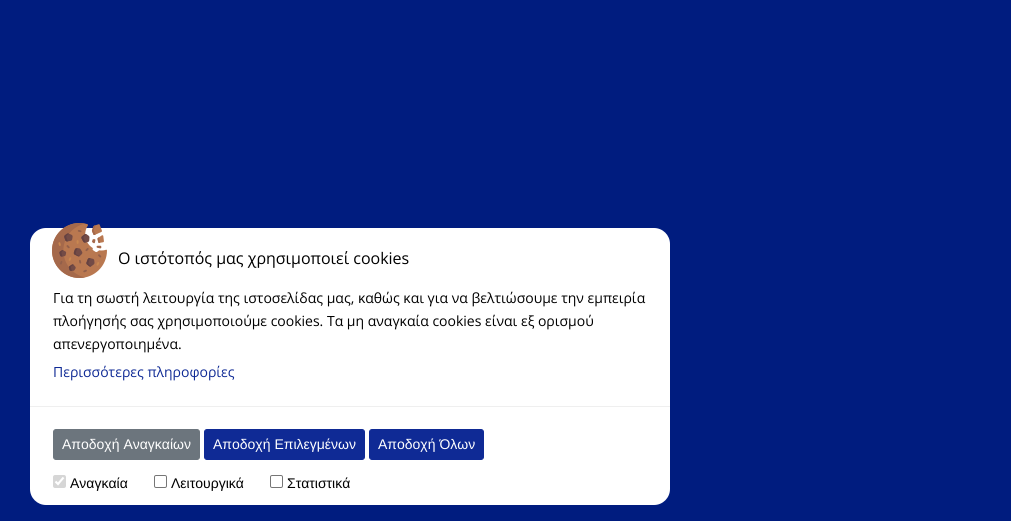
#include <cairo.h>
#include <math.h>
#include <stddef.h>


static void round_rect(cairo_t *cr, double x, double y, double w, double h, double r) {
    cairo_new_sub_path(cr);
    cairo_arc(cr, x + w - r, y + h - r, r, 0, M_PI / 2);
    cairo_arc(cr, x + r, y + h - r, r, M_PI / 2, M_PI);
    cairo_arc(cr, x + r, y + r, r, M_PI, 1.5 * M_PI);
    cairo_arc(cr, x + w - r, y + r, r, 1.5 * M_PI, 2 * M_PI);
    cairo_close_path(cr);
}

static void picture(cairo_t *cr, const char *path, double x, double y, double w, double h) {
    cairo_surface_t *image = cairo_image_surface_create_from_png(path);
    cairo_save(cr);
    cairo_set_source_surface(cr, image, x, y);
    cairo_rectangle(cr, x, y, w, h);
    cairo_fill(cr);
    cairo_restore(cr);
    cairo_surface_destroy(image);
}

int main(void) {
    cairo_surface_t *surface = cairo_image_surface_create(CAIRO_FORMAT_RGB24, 1011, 521);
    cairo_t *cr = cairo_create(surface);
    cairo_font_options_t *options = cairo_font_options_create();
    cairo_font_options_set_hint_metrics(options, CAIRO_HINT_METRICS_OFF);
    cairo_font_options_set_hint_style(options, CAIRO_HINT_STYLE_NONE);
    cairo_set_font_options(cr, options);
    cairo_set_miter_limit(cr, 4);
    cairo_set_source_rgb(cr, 0, 0.11, 0.498);
    cairo_paint(cr);
    cairo_set_source_rgb(cr, 1, 1, 1);
    round_rect(cr, 30, 228, 640, 277, 16);
    cairo_fill(cr);
    picture(cr, "img1.png", 52, 223, 55, 55);
    cairo_select_font_face(cr, "Open Sans", CAIRO_FONT_SLANT_NORMAL, CAIRO_FONT_WEIGHT_NORMAL);
    cairo_set_font_size(cr, 16);
    cairo_set_source_rgb(cr, 0, 0, 0);
    cairo_move_to(cr, 118, 264);
    cairo_show_text(cr, "O ιστότοπός μας χρησιμοποιεί cookies");
    cairo_set_font_size(cr, 14);
    cairo_move_to(cr, 53, 303);
    cairo_show_text(cr, "Για τη σωστή λειτουργία της ιστοσελίδας μας, καθώς και για να βελτιώσουμε την εμπειρία");
    cairo_move_to(cr, 53, 326);
    cairo_show_text(cr, "πλοήγησής σας χρησιμοποιούμε cookies. Tα μη αναγκαία cookies είναι εξ ορισμού");
    cairo_move_to(cr, 53, 349);
    cairo_show_text(cr, "απενεργοποιημένα.");
    cairo_set_source_rgb(cr, 0.059, 0.165, 0.584);
    cairo_move_to(cr, 53, 377);
    cairo_show_text(cr, "Περισσότερες πληροφορίες");
    cairo_set_source_rgb(cr, 0.937, 0.937, 0.937);
    cairo_rectangle(cr, 30, 406, 640, 1);
    cairo_fill(cr);
    cairo_set_source_rgb(cr, 0.424, 0.459, 0.49);
    round_rect(cr, 53.5, 429.5, 146, 30, 2.5);
    cairo_fill_preserve(cr);
    cairo_set_line_width(cr, 1);
    cairo_stroke(cr);
    cairo_select_font_face(cr, "Liberation Sans", CAIRO_FONT_SLANT_NORMAL, CAIRO_FONT_WEIGHT_NORMAL);
    cairo_set_source_rgb(cr, 1, 1, 1);
    cairo_move_to(cr, 62, 449);
    cairo_show_text(cr, "Αποδοχή Αναγκαίων");
    cairo_set_source_rgb(cr, 0.059, 0.165, 0.584);
    round_rect(cr, 204.5, 429.5, 160, 30, 2.5);
    cairo_fill_preserve(cr);
    cairo_stroke(cr);
    cairo_set_source_rgb(cr, 1, 1, 1);
    cairo_move_to(cr, 213, 449);
    cairo_show_text(cr, "Αποδοχή Επιλεγμένων");
    cairo_set_source_rgb(cr, 0.059, 0.165, 0.584);
    round_rect(cr, 369.5, 429.5, 114, 30, 2.5);
    cairo_fill_preserve(cr);
    cairo_stroke(cr);
    cairo_set_source_rgb(cr, 1, 1, 1);
    cairo_move_to(cr, 378, 449);
    cairo_show_text(cr, "Αποδοχή Όλων");
    cairo_set_source_rgb(cr, 0.839, 0.839, 0.839);
    round_rect(cr, 53, 475, 13, 13, 2);
    cairo_fill(cr);
    cairo_new_path(cr);
    cairo_move_to(cr, 55.5, 481.5);
    cairo_line_to(cr, 58, 484);
    cairo_line_to(cr, 63.5, 477.5);
    cairo_set_source_rgb(cr, 1, 1, 1);
    cairo_set_line_width(cr, 2.1);
    cairo_stroke(cr);
    cairo_set_source_rgb(cr, 0, 0, 0);
    cairo_move_to(cr, 70, 488);
    cairo_show_text(cr, "Αναγκαία");
    round_rect(cr, 154.5, 475.5, 12, 12, 1.5);
    cairo_set_source_rgb(cr, 0.463, 0.463, 0.463);
    cairo_set_line_width(cr, 1);
    cairo_stroke(cr);
    cairo_set_source_rgb(cr, 0, 0, 0);
    cairo_move_to(cr, 171, 488);
    cairo_show_text(cr, "Λειτουργικά");
    round_rect(cr, 270.5, 475.5, 12, 12, 1.5);
    cairo_set_source_rgb(cr, 0.463, 0.463, 0.463);
    cairo_stroke(cr);
    cairo_set_source_rgb(cr, 0, 0, 0);
    cairo_move_to(cr, 287, 488);
    cairo_show_text(cr, "Στατιστικά");
    cairo_surface_write_to_png(surface, "page.png");
    cairo_font_options_destroy(options);
    cairo_destroy(cr);
    cairo_surface_destroy(surface);
    return 0;
}
